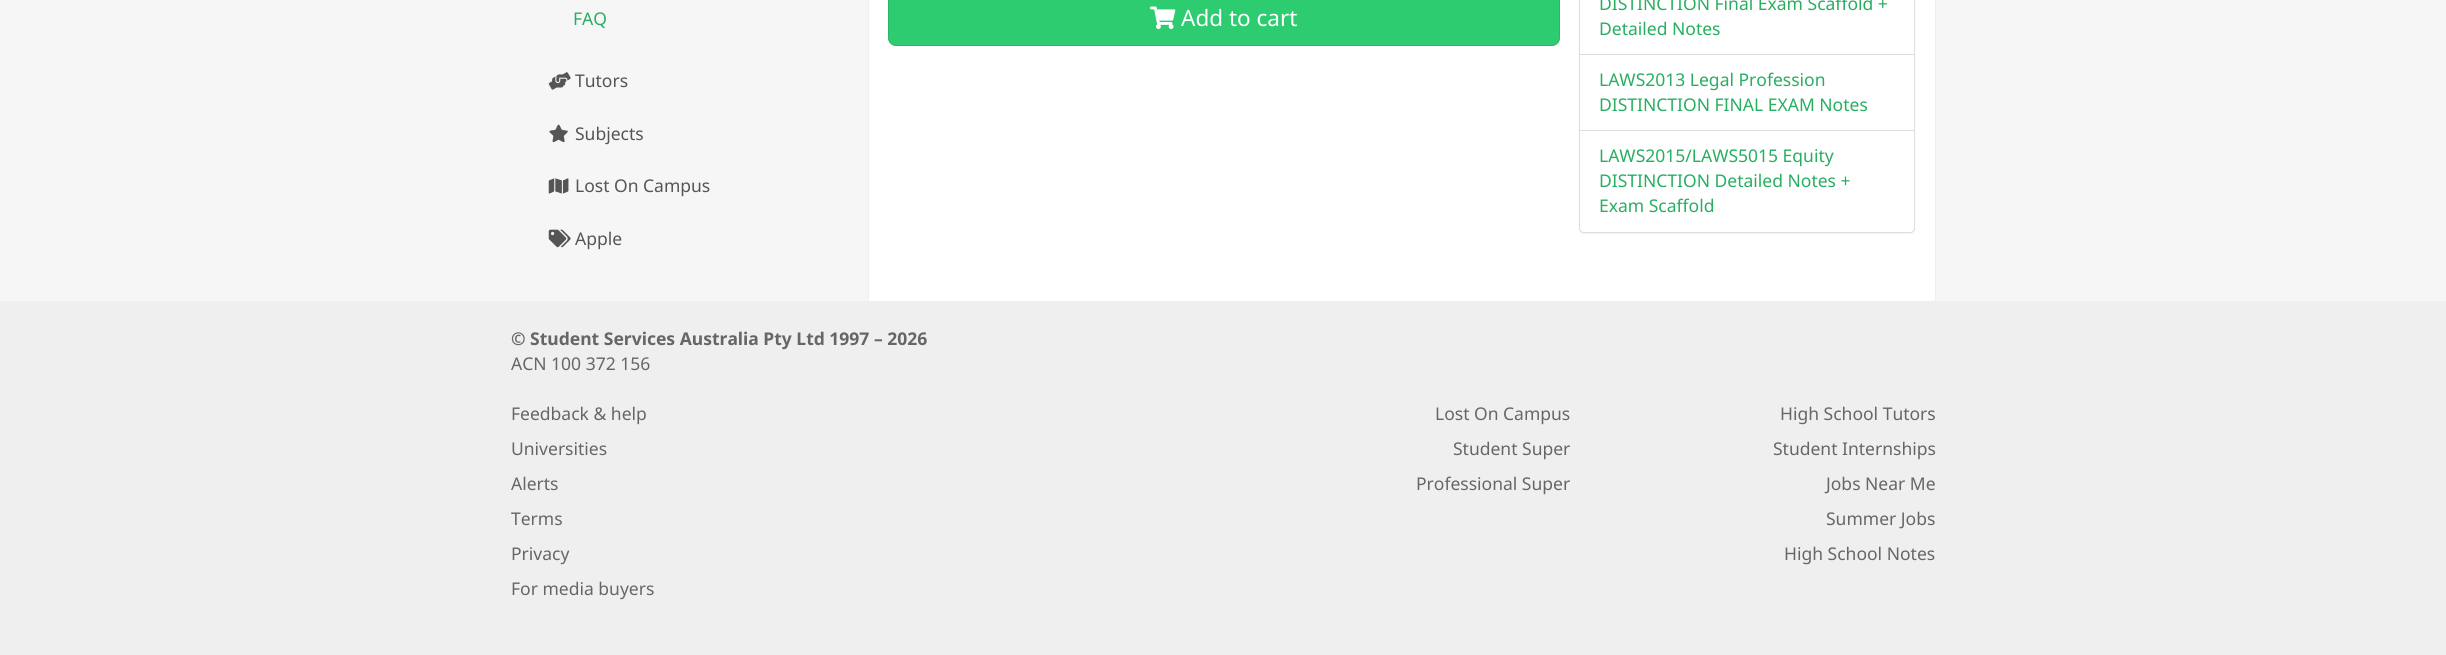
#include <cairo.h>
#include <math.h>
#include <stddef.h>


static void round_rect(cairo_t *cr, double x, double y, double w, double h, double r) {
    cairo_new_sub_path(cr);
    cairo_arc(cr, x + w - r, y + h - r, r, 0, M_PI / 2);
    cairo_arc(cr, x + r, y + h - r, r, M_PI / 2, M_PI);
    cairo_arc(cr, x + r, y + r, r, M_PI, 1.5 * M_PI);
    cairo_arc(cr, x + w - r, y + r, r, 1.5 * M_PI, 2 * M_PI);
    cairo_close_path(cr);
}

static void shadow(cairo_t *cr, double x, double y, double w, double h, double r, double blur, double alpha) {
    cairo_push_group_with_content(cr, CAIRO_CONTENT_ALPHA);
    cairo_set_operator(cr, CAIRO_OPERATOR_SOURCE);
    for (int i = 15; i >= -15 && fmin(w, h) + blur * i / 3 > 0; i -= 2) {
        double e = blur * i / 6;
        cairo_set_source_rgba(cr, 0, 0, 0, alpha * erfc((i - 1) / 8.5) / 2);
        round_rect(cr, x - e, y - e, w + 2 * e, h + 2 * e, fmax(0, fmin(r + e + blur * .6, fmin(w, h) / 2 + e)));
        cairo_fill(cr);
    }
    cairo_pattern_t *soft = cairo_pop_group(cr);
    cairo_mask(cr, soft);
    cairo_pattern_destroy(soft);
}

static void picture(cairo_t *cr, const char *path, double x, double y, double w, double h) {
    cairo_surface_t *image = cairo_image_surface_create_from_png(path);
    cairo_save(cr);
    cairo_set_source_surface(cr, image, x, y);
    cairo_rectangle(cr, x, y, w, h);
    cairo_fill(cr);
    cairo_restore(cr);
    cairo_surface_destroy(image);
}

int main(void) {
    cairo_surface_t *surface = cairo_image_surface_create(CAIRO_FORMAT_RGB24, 2446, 655);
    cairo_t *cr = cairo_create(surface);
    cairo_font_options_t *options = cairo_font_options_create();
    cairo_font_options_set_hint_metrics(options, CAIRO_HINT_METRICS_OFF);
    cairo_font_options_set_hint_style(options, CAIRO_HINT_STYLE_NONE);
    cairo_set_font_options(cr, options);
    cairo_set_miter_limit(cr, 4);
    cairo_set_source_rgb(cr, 0.961, 0.961, 0.961);
    cairo_paint(cr);
    cairo_select_font_face(cr, "Noto Sans", CAIRO_FONT_SLANT_NORMAL, CAIRO_FONT_WEIGHT_NORMAL);
    cairo_set_font_size(cr, 17.5);
    cairo_set_source_rgb(cr, 0.153, 0.682, 0.376);
    cairo_move_to(cr, 573, 25);
    cairo_show_text(cr, "FAQ");
    picture(cr, "img1.png", 548, 72, 23, 18);
    cairo_set_source_rgb(cr, 0.333, 0.333, 0.333);
    cairo_move_to(cr, 575, 87);
    cairo_show_text(cr, "Tutors");
    picture(cr, "img2.png", 549, 124, 19, 19);
    cairo_move_to(cr, 575, 140);
    cairo_show_text(cr, "Subjects");
    picture(cr, "img3.png", 548, 178, 21, 16);
    cairo_move_to(cr, 575, 192);
    cairo_show_text(cr, "Lost On Campus");
    picture(cr, "img4.png", 548, 229, 23, 19);
    cairo_move_to(cr, 575, 245);
    cairo_show_text(cr, "Apple");
    cairo_set_source_rgb(cr, 1, 1, 1);
    cairo_rectangle(cr, 869, 0, 1066, 301);
    cairo_fill(cr);
    cairo_set_source_rgb(cr, 0.933, 0.933, 0.933);
    cairo_rectangle(cr, 1935, 0, 1, 301);
    cairo_fill(cr);
    cairo_rectangle(cr, 868, 0, 1, 301);
    cairo_fill(cr);
    cairo_set_source_rgb(cr, 0.18, 0.8, 0.443);
    round_rect(cr, 888.5, -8.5, 671, 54, 7.5);
    cairo_fill_preserve(cr);
    cairo_set_source_rgb(cr, 0.161, 0.718, 0.396);
    cairo_set_line_width(cr, 1);
    cairo_stroke(cr);
    picture(cr, "img5.png", 1150, 6, 26, 23);
    cairo_set_font_size(cr, 22.5);
    cairo_set_source_rgb(cr, 1, 1, 1);
    cairo_move_to(cr, 1181, 26);
    cairo_show_text(cr, "Add to cart");
    cairo_set_source_rgb(cr, 0, 0, 0);
    shadow(cr, 1579, -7, 336, 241, 5, 0.5, 0.05);
    cairo_set_source_rgb(cr, 1, 1, 1);
    round_rect(cr, 1579.5, -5.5, 335, 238, 4.5);
    cairo_fill_preserve(cr);
    cairo_set_source_rgb(cr, 0.867, 0.867, 0.867);
    cairo_stroke(cr);
    cairo_rectangle(cr, 1580, 54, 334, 1);
    cairo_fill(cr);
    cairo_set_font_size(cr, 17.5);
    cairo_set_source_rgb(cr, 0.153, 0.682, 0.376);
    cairo_move_to(cr, 1599, 10);
    cairo_show_text(cr, "DISTINCTION Final Exam Scaffold +");
    cairo_move_to(cr, 1599, 35);
    cairo_show_text(cr, "Detailed Notes");
    cairo_move_to(cr, 1599, 86);
    cairo_show_text(cr, "LAWS2013 Legal Profession");
    cairo_move_to(cr, 1599, 111);
    cairo_show_text(cr, "DISTINCTION FINAL EXAM Notes");
    cairo_set_source_rgb(cr, 0.867, 0.867, 0.867);
    cairo_rectangle(cr, 1580, 130, 334, 1);
    cairo_fill(cr);
    cairo_set_source_rgb(cr, 0.153, 0.682, 0.376);
    cairo_move_to(cr, 1599, 162);
    cairo_show_text(cr, "LAWS2015/LAWS5015 Equity");
    cairo_move_to(cr, 1599, 187);
    cairo_show_text(cr, "DISTINCTION Detailed Notes +");
    cairo_move_to(cr, 1599, 212);
    cairo_show_text(cr, "Exam Scaffold");
    cairo_set_source_rgb(cr, 0.937, 0.937, 0.937);
    cairo_rectangle(cr, 0, 301, 2446, 354);
    cairo_fill(cr);
    cairo_select_font_face(cr, "Noto Sans", CAIRO_FONT_SLANT_NORMAL, CAIRO_FONT_WEIGHT_BOLD);
    cairo_set_source_rgb(cr, 0.4, 0.4, 0.4);
    cairo_move_to(cr, 511, 345);
    cairo_show_text(cr, "© Student Services Australia Pty Ltd 1997 – 2026");
    cairo_select_font_face(cr, "Noto Sans", CAIRO_FONT_SLANT_NORMAL, CAIRO_FONT_WEIGHT_NORMAL);
    cairo_move_to(cr, 511, 370);
    cairo_show_text(cr, "ACN 100 372 156");
    cairo_move_to(cr, 511, 420);
    cairo_show_text(cr, "Feedback & help");
    cairo_move_to(cr, 511, 455);
    cairo_show_text(cr, "Universities");
    cairo_move_to(cr, 511, 490);
    cairo_show_text(cr, "Alerts");
    cairo_move_to(cr, 511, 525);
    cairo_show_text(cr, "Terms");
    cairo_move_to(cr, 511, 560);
    cairo_show_text(cr, "Privacy");
    cairo_move_to(cr, 511, 595);
    cairo_show_text(cr, "For media buyers");
    cairo_move_to(cr, 1435, 420);
    cairo_show_text(cr, "Lost On Campus");
    cairo_move_to(cr, 1453, 455);
    cairo_show_text(cr, "Student Super");
    cairo_move_to(cr, 1416, 490);
    cairo_show_text(cr, "Professional Super");
    cairo_move_to(cr, 1780, 420);
    cairo_show_text(cr, "High School Tutors");
    cairo_move_to(cr, 1773, 455);
    cairo_show_text(cr, "Student Internships");
    cairo_move_to(cr, 1826, 490);
    cairo_show_text(cr, "Jobs Near Me");
    cairo_move_to(cr, 1826, 525);
    cairo_show_text(cr, "Summer Jobs");
    cairo_move_to(cr, 1784, 560);
    cairo_show_text(cr, "High School Notes");
    cairo_surface_write_to_png(surface, "page.png");
    cairo_font_options_destroy(options);
    cairo_destroy(cr);
    cairo_surface_destroy(surface);
    return 0;
}
